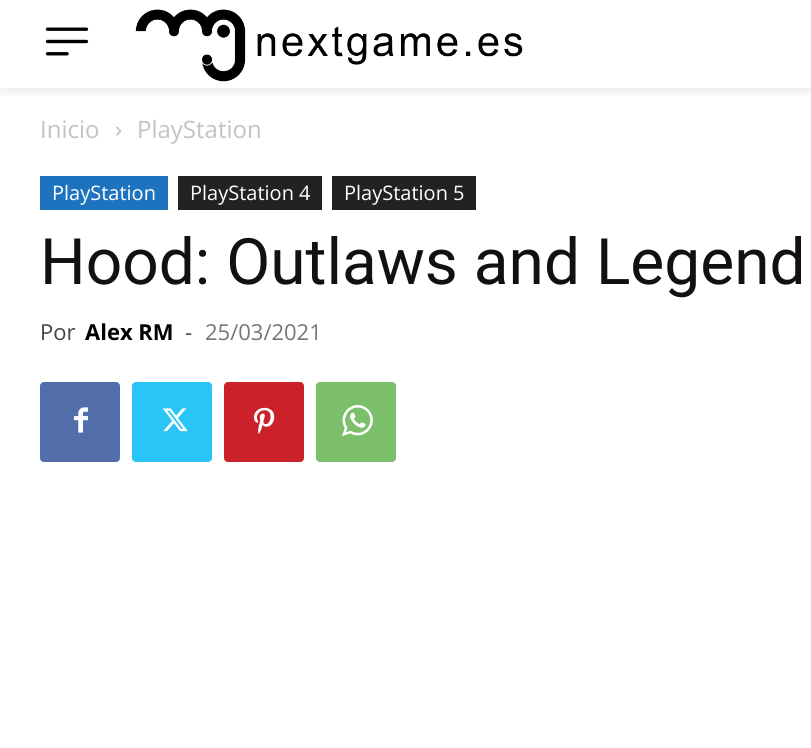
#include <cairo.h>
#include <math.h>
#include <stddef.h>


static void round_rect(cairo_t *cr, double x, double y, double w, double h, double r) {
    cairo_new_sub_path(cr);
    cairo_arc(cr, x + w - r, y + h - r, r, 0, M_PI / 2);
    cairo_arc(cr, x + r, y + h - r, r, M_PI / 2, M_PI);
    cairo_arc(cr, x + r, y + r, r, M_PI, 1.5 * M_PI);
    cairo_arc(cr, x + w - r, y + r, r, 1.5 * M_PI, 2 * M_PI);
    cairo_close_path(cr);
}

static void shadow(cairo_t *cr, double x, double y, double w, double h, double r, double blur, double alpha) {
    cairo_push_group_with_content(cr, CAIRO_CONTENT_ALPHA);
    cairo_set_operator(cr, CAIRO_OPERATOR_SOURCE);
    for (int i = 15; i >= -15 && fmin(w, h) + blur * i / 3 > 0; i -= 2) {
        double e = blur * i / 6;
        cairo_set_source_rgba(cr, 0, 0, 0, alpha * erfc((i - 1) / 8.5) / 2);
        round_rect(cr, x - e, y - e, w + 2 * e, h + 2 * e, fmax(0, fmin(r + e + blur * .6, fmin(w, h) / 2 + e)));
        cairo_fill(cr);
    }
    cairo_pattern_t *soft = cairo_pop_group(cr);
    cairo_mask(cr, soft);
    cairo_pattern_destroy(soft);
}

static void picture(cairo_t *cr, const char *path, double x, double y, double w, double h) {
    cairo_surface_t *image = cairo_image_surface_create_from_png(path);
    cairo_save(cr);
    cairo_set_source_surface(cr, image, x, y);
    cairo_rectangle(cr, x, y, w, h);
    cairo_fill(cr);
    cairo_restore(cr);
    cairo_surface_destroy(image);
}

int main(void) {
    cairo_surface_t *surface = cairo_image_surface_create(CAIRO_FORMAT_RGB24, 811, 748);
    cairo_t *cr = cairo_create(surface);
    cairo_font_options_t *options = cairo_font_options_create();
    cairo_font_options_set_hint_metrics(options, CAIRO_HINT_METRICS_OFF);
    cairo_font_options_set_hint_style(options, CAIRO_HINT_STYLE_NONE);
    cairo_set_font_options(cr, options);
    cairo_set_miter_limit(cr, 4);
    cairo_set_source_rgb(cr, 1, 1, 1);
    cairo_paint(cr);
    picture(cr, "img1.png", 45, 27, 44, 29);
    picture(cr, "img2.png", 135, 9, 388, 73);
    cairo_save(cr);
    cairo_rectangle(cr, 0, 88, 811, 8);
    cairo_clip(cr);
    cairo_set_source_rgb(cr, 0, 0, 0);
    shadow(cr, 0, 4, 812, 88, 0, 6, 0.08);
    cairo_restore(cr);
    cairo_select_font_face(cr, "Open Sans", CAIRO_FONT_SLANT_NORMAL, CAIRO_FONT_WEIGHT_NORMAL);
    cairo_set_font_size(cr, 24);
    cairo_set_source_rgb(cr, 0.765, 0.765, 0.765);
    cairo_move_to(cr, 40, 138);
    cairo_show_text(cr, "Inicio");
    picture(cr, "img3.png", 116, 126, 6, 10);
    cairo_move_to(cr, 137, 138);
    cairo_show_text(cr, "PlayStation");
    cairo_set_source_rgb(cr, 0.118, 0.451, 0.745);
    cairo_rectangle(cr, 40, 176, 128, 34);
    cairo_fill(cr);
    cairo_set_font_size(cr, 20);
    cairo_set_source_rgb(cr, 1, 1, 1);
    cairo_move_to(cr, 52, 200);
    cairo_show_text(cr, "PlayStation");
    cairo_set_source_rgb(cr, 0.133, 0.133, 0.133);
    cairo_rectangle(cr, 178, 176, 144, 34);
    cairo_fill(cr);
    cairo_set_source_rgb(cr, 1, 1, 1);
    cairo_move_to(cr, 190, 200);
    cairo_show_text(cr, "PlayStation 4");
    cairo_set_source_rgb(cr, 0.133, 0.133, 0.133);
    cairo_rectangle(cr, 332, 176, 144, 34);
    cairo_fill(cr);
    cairo_set_source_rgb(cr, 1, 1, 1);
    cairo_move_to(cr, 344, 200);
    cairo_show_text(cr, "PlayStation 5");
    cairo_select_font_face(cr, "Roboto", CAIRO_FONT_SLANT_NORMAL, CAIRO_FONT_WEIGHT_NORMAL);
    cairo_set_font_size(cr, 64);
    cairo_set_source_rgb(cr, 0.067, 0.067, 0.067);
    cairo_move_to(cr, 40, 284);
    cairo_show_text(cr, "Hood: Outlaws and Legend");
    cairo_select_font_face(cr, "Open Sans", CAIRO_FONT_SLANT_NORMAL, CAIRO_FONT_WEIGHT_NORMAL);
    cairo_set_font_size(cr, 22);
    cairo_set_source_rgb(cr, 0.267, 0.267, 0.267);
    cairo_move_to(cr, 40, 340);
    cairo_show_text(cr, "Por");
    cairo_select_font_face(cr, "Open Sans", CAIRO_FONT_SLANT_NORMAL, CAIRO_FONT_WEIGHT_BOLD);
    cairo_set_source_rgb(cr, 0, 0, 0);
    cairo_move_to(cr, 85, 340);
    cairo_show_text(cr, "Alex RM");
    cairo_select_font_face(cr, "Open Sans", CAIRO_FONT_SLANT_NORMAL, CAIRO_FONT_WEIGHT_NORMAL);
    cairo_set_source_rgb(cr, 0.267, 0.267, 0.267);
    cairo_move_to(cr, 185, 340);
    cairo_show_text(cr, "-");
    cairo_set_source_rgb(cr, 0.463, 0.463, 0.463);
    cairo_move_to(cr, 205, 340);
    cairo_show_text(cr, "25/03/2021");
    cairo_set_source_rgb(cr, 0.318, 0.431, 0.671);
    round_rect(cr, 40, 382, 80, 80, 4);
    cairo_fill(cr);
    picture(cr, "img4.png", 74, 407, 14, 26);
    cairo_set_source_rgb(cr, 0.161, 0.773, 0.965);
    round_rect(cr, 132, 382, 80, 80, 4);
    cairo_fill(cr);
    picture(cr, "img5.png", 162, 408, 26, 24);
    cairo_set_source_rgb(cr, 0.792, 0.129, 0.165);
    round_rect(cr, 224, 382, 80, 80, 4);
    cairo_fill(cr);
    picture(cr, "img6.png", 254, 407, 21, 27);
    cairo_set_source_rgb(cr, 0.482, 0.749, 0.416);
    round_rect(cr, 316, 382, 80, 80, 4);
    cairo_fill(cr);
    picture(cr, "img7.png", 342, 405, 31, 31);
    cairo_surface_write_to_png(surface, "page.png");
    cairo_font_options_destroy(options);
    cairo_destroy(cr);
    cairo_surface_destroy(surface);
    return 0;
}
